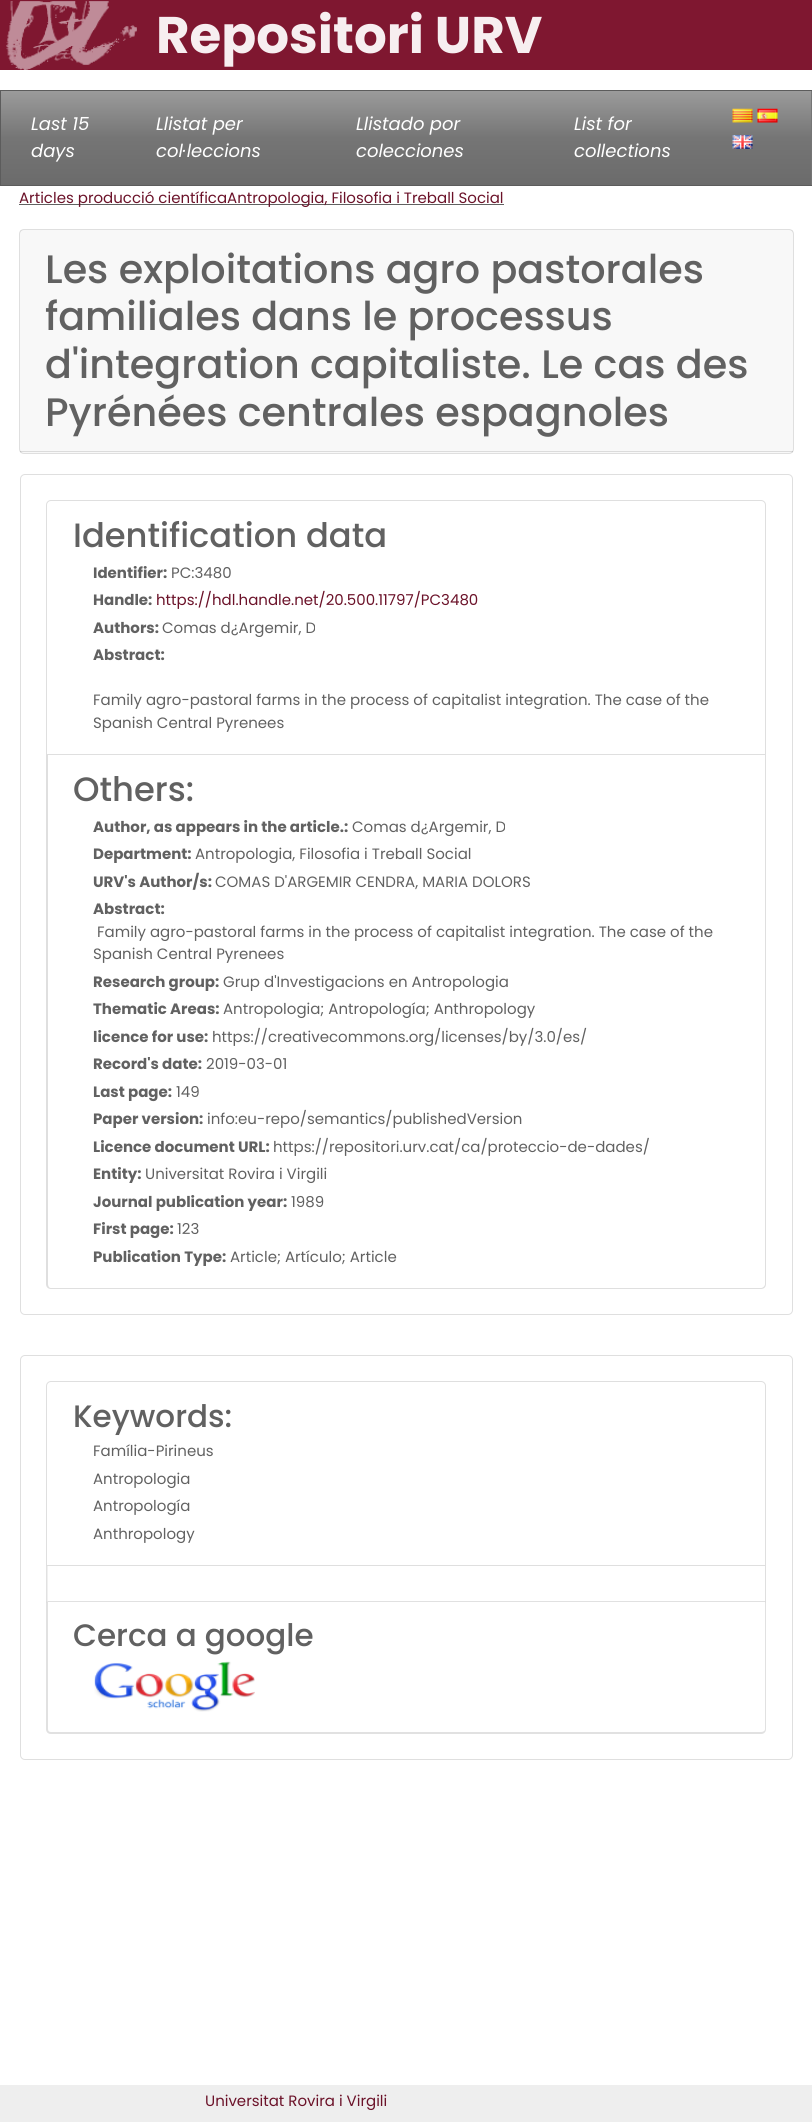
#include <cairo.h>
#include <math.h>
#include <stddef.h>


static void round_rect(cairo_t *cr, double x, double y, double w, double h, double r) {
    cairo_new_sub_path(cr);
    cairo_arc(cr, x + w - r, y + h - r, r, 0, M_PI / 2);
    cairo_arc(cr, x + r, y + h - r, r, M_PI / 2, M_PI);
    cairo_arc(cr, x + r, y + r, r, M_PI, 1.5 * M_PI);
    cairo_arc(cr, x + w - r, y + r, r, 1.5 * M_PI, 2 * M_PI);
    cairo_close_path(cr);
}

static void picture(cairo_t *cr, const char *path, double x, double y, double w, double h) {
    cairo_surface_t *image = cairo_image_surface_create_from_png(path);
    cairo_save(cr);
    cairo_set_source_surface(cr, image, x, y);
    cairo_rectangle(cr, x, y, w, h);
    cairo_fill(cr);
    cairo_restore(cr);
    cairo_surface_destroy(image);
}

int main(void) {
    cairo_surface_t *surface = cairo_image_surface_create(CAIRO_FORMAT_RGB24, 812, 2122);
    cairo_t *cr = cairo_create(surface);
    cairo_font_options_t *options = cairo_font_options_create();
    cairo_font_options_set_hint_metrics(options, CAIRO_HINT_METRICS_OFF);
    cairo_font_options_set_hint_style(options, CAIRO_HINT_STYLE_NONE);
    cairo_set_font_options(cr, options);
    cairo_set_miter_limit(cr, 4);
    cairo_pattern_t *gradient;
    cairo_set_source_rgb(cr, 1, 1, 1);
    cairo_paint(cr);
    cairo_set_source_rgb(cr, 0.498, 0.09, 0.188);
    cairo_rectangle(cr, 0, 0, 812, 70);
    cairo_fill(cr);
    picture(cr, "img1.png", 6, 1, 131, 69);
    cairo_select_font_face(cr, "Poppins", CAIRO_FONT_SLANT_NORMAL, CAIRO_FONT_WEIGHT_BOLD);
    cairo_set_font_size(cr, 51.5);
    cairo_set_source_rgb(cr, 0.965, 0.933, 0.941);
    cairo_move_to(cr, 156, 53);
    cairo_show_text(cr, "Repositori URV");
    cairo_set_source_rgb(cr, 0.459, 0.459, 0.459);
    cairo_rectangle(cr, 811, 91, 1, 94);
    cairo_fill(cr);
    gradient = cairo_pattern_create_linear(406, 91, 406, 185);
    cairo_pattern_add_color_stop_rgba(gradient, 0, 0.608, 0.608, 0.608, 1);
    cairo_pattern_add_color_stop_rgba(gradient, 0.5, 0.459, 0.459, 0.459, 1);
    cairo_pattern_add_color_stop_rgba(gradient, 1, 0.42, 0.42, 0.42, 1);
    cairo_set_source(cr, gradient);
    cairo_pattern_destroy(gradient);
    cairo_rectangle(cr, 1, 91, 810, 94);
    cairo_fill(cr);
    cairo_rectangle(cr, 0.5, 90.5, 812, 95);
    cairo_set_source_rgb(cr, 0.361, 0.361, 0.361);
    cairo_set_line_width(cr, 1);
    cairo_stroke(cr);
    cairo_select_font_face(cr, "Poppins", CAIRO_FONT_SLANT_ITALIC, CAIRO_FONT_WEIGHT_NORMAL);
    cairo_set_font_size(cr, 18);
    cairo_set_source_rgb(cr, 1, 1, 1);
    cairo_move_to(cr, 31, 130);
    cairo_show_text(cr, "Last 15");
    cairo_move_to(cr, 31, 157);
    cairo_show_text(cr, "days");
    cairo_move_to(cr, 156, 130);
    cairo_show_text(cr, "Llistat per");
    cairo_move_to(cr, 156, 157);
    cairo_show_text(cr, "col·leccions");
    cairo_move_to(cr, 356, 130);
    cairo_show_text(cr, "Llistado por");
    cairo_move_to(cr, 356, 157);
    cairo_show_text(cr, "colecciones");
    cairo_move_to(cr, 574, 130);
    cairo_show_text(cr, "List for");
    cairo_move_to(cr, 574, 157);
    cairo_show_text(cr, "collections");
    picture(cr, "img2.png", 732, 108, 21, 15);
    picture(cr, "img3.png", 757, 108, 21, 15);
    picture(cr, "img4.png", 732, 135, 21, 14);
    cairo_set_source_rgb(cr, 0.38, 0.38, 0.38);
    cairo_rectangle(cr, 19, 204, 485, 1);
    cairo_fill(cr);
    cairo_select_font_face(cr, "Poppins", CAIRO_FONT_SLANT_NORMAL, CAIRO_FONT_WEIGHT_NORMAL);
    cairo_set_font_size(cr, 15);
    cairo_set_source_rgb(cr, 0.42, 0.071, 0.161);
    cairo_move_to(cr, 19, 203);
    cairo_show_text(cr, "Articles producció científicaAntropologia, Filosofia i Treball Social");
    round_rect(cr, 19.5, 229.5, 774, 224, 4.5);
    cairo_set_source_rgb(cr, 0.875, 0.875, 0.875);
    cairo_stroke(cr);
    cairo_set_source_rgba(cr, 0, 0, 0, 0.03);
    cairo_rectangle(cr, 20, 230, 773, 223);
    cairo_fill(cr);
    cairo_set_source_rgba(cr, 0, 0, 0, 0.12);
    cairo_rectangle(cr, 20, 451, 773, 1);
    cairo_fill(cr);
    cairo_select_font_face(cr, "Poppins Medium", CAIRO_FONT_SLANT_NORMAL, CAIRO_FONT_WEIGHT_NORMAL);
    cairo_set_font_size(cr, 39.7);
    cairo_set_source_rgb(cr, 0.38, 0.38, 0.38);
    cairo_move_to(cr, 45, 283);
    cairo_show_text(cr, "Les exploitations agro pastorales");
    cairo_move_to(cr, 45, 330);
    cairo_show_text(cr, "familiales dans le processus");
    cairo_move_to(cr, 45, 378);
    cairo_show_text(cr, "d'integration capitaliste. Le cas des");
    cairo_move_to(cr, 45, 426);
    cairo_show_text(cr, "Pyrénées centrales espagnoles");
    round_rect(cr, 20.5, 474.5, 772, 840, 4.5);
    cairo_set_source_rgb(cr, 0.875, 0.875, 0.875);
    cairo_stroke(cr);
    cairo_new_path(cr);
    cairo_move_to(cr, 51, 500.5);
    cairo_line_to(cr, 761, 500.5);
    cairo_curve_to(cr, 763.5, 500.5, 765.5, 502.5, 765.5, 505);
    cairo_line_to(cr, 765.5, 754.5);
    cairo_line_to(cr, 46.5, 754.5);
    cairo_line_to(cr, 46.5, 505);
    cairo_curve_to(cr, 46.5, 502.5, 48.5, 500.5, 51, 500.5);
    cairo_close_path(cr);
    cairo_stroke(cr);
    cairo_set_font_size(cr, 33.75);
    cairo_set_source_rgb(cr, 0.38, 0.38, 0.38);
    cairo_move_to(cr, 73, 547);
    cairo_show_text(cr, "Identification data");
    cairo_select_font_face(cr, "Poppins", CAIRO_FONT_SLANT_NORMAL, CAIRO_FONT_WEIGHT_BOLD);
    cairo_set_font_size(cr, 15);
    cairo_move_to(cr, 93, 578);
    cairo_show_text(cr, "Identifier:");
    cairo_select_font_face(cr, "Poppins", CAIRO_FONT_SLANT_NORMAL, CAIRO_FONT_WEIGHT_NORMAL);
    cairo_move_to(cr, 171, 578);
    cairo_show_text(cr, "PC:3480");
    cairo_select_font_face(cr, "Poppins", CAIRO_FONT_SLANT_NORMAL, CAIRO_FONT_WEIGHT_BOLD);
    cairo_move_to(cr, 93, 605);
    cairo_show_text(cr, "Handle:");
    cairo_select_font_face(cr, "Poppins", CAIRO_FONT_SLANT_NORMAL, CAIRO_FONT_WEIGHT_NORMAL);
    cairo_set_source_rgb(cr, 0.42, 0.071, 0.161);
    cairo_move_to(cr, 156, 605);
    cairo_show_text(cr, "https://hdl.handle.net/20.500.11797/PC3480");
    cairo_select_font_face(cr, "Poppins", CAIRO_FONT_SLANT_NORMAL, CAIRO_FONT_WEIGHT_BOLD);
    cairo_set_source_rgb(cr, 0.38, 0.38, 0.38);
    cairo_move_to(cr, 93, 633);
    cairo_show_text(cr, "Authors:");
    cairo_select_font_face(cr, "Poppins", CAIRO_FONT_SLANT_NORMAL, CAIRO_FONT_WEIGHT_NORMAL);
    cairo_move_to(cr, 162, 633);
    cairo_show_text(cr, "Comas d¿Argemir, D");
    cairo_select_font_face(cr, "Poppins", CAIRO_FONT_SLANT_NORMAL, CAIRO_FONT_WEIGHT_BOLD);
    cairo_move_to(cr, 93, 660);
    cairo_show_text(cr, "Abstract:");
    cairo_select_font_face(cr, "Poppins", CAIRO_FONT_SLANT_NORMAL, CAIRO_FONT_WEIGHT_NORMAL);
    cairo_move_to(cr, 93, 705);
    cairo_show_text(cr, "Family agro-pastoral farms in the process of capitalist integration. The case of the");
    cairo_move_to(cr, 93, 728);
    cairo_show_text(cr, "Spanish Central Pyrenees");
    cairo_set_source_rgb(cr, 0.875, 0.875, 0.875);
    cairo_set_fill_rule(cr, CAIRO_FILL_RULE_EVEN_ODD);
    cairo_new_path(cr);
    cairo_move_to(cr, 46, 755);
    cairo_line_to(cr, 766, 755);
    cairo_line_to(cr, 766, 1284);
    cairo_curve_to(cr, 766, 1287, 764, 1289, 761, 1289);
    cairo_line_to(cr, 51, 1289);
    cairo_curve_to(cr, 48, 1289, 46, 1287, 46, 1284);
    cairo_close_path(cr);
    cairo_move_to(cr, 48, 755);
    cairo_line_to(cr, 765, 755);
    cairo_line_to(cr, 765, 1284);
    cairo_curve_to(cr, 765, 1286, 763, 1288, 761, 1288);
    cairo_line_to(cr, 51, 1288);
    cairo_curve_to(cr, 49, 1288, 48, 1286, 48, 1284);
    cairo_close_path(cr);
    cairo_fill(cr);
    cairo_select_font_face(cr, "Poppins Medium", CAIRO_FONT_SLANT_NORMAL, CAIRO_FONT_WEIGHT_NORMAL);
    cairo_set_font_size(cr, 33.75);
    cairo_set_source_rgb(cr, 0.38, 0.38, 0.38);
    cairo_move_to(cr, 73, 801);
    cairo_show_text(cr, "Others:");
    cairo_select_font_face(cr, "Poppins", CAIRO_FONT_SLANT_NORMAL, CAIRO_FONT_WEIGHT_BOLD);
    cairo_set_font_size(cr, 15);
    cairo_move_to(cr, 93, 832);
    cairo_show_text(cr, "Author, as appears in the article.:");
    cairo_select_font_face(cr, "Poppins", CAIRO_FONT_SLANT_NORMAL, CAIRO_FONT_WEIGHT_NORMAL);
    cairo_move_to(cr, 352, 832);
    cairo_show_text(cr, "Comas d¿Argemir, D");
    cairo_select_font_face(cr, "Poppins", CAIRO_FONT_SLANT_NORMAL, CAIRO_FONT_WEIGHT_BOLD);
    cairo_move_to(cr, 93, 859);
    cairo_show_text(cr, "Department:");
    cairo_select_font_face(cr, "Poppins", CAIRO_FONT_SLANT_NORMAL, CAIRO_FONT_WEIGHT_NORMAL);
    cairo_move_to(cr, 195, 859);
    cairo_show_text(cr, "Antropologia, Filosofia i Treball Social");
    cairo_select_font_face(cr, "Poppins", CAIRO_FONT_SLANT_NORMAL, CAIRO_FONT_WEIGHT_BOLD);
    cairo_move_to(cr, 93, 887);
    cairo_show_text(cr, "URV's Author/s:");
    cairo_select_font_face(cr, "Poppins", CAIRO_FONT_SLANT_NORMAL, CAIRO_FONT_WEIGHT_NORMAL);
    cairo_move_to(cr, 215, 887);
    cairo_show_text(cr, "COMAS D'ARGEMIR CENDRA, MARIA DOLORS");
    cairo_select_font_face(cr, "Poppins", CAIRO_FONT_SLANT_NORMAL, CAIRO_FONT_WEIGHT_BOLD);
    cairo_move_to(cr, 93, 914);
    cairo_show_text(cr, "Abstract:");
    cairo_select_font_face(cr, "Poppins", CAIRO_FONT_SLANT_NORMAL, CAIRO_FONT_WEIGHT_NORMAL);
    cairo_move_to(cr, 97, 937);
    cairo_show_text(cr, "Family agro-pastoral farms in the process of capitalist integration. The case of the");
    cairo_move_to(cr, 93, 959);
    cairo_show_text(cr, "Spanish Central Pyrenees");
    cairo_select_font_face(cr, "Poppins", CAIRO_FONT_SLANT_NORMAL, CAIRO_FONT_WEIGHT_BOLD);
    cairo_move_to(cr, 93, 987);
    cairo_show_text(cr, "Research group:");
    cairo_select_font_face(cr, "Poppins", CAIRO_FONT_SLANT_NORMAL, CAIRO_FONT_WEIGHT_NORMAL);
    cairo_move_to(cr, 223, 987);
    cairo_show_text(cr, "Grup d'Investigacions en Antropologia");
    cairo_select_font_face(cr, "Poppins", CAIRO_FONT_SLANT_NORMAL, CAIRO_FONT_WEIGHT_BOLD);
    cairo_move_to(cr, 93, 1014);
    cairo_show_text(cr, "Thematic Areas:");
    cairo_select_font_face(cr, "Poppins", CAIRO_FONT_SLANT_NORMAL, CAIRO_FONT_WEIGHT_NORMAL);
    cairo_move_to(cr, 223, 1014);
    cairo_show_text(cr, "Antropologia; Antropología; Anthropology");
    cairo_select_font_face(cr, "Poppins", CAIRO_FONT_SLANT_NORMAL, CAIRO_FONT_WEIGHT_BOLD);
    cairo_move_to(cr, 93, 1042);
    cairo_show_text(cr, "licence for use:");
    cairo_select_font_face(cr, "Poppins", CAIRO_FONT_SLANT_NORMAL, CAIRO_FONT_WEIGHT_NORMAL);
    cairo_move_to(cr, 212, 1042);
    cairo_show_text(cr, "https://creativecommons.org/licenses/by/3.0/es/");
    cairo_select_font_face(cr, "Poppins", CAIRO_FONT_SLANT_NORMAL, CAIRO_FONT_WEIGHT_BOLD);
    cairo_move_to(cr, 93, 1069);
    cairo_show_text(cr, "Record's date:");
    cairo_select_font_face(cr, "Poppins", CAIRO_FONT_SLANT_NORMAL, CAIRO_FONT_WEIGHT_NORMAL);
    cairo_move_to(cr, 206, 1069);
    cairo_show_text(cr, "2019-03-01");
    cairo_select_font_face(cr, "Poppins", CAIRO_FONT_SLANT_NORMAL, CAIRO_FONT_WEIGHT_BOLD);
    cairo_move_to(cr, 93, 1097);
    cairo_show_text(cr, "Last page:");
    cairo_select_font_face(cr, "Poppins", CAIRO_FONT_SLANT_NORMAL, CAIRO_FONT_WEIGHT_NORMAL);
    cairo_move_to(cr, 176, 1097);
    cairo_show_text(cr, "149");
    cairo_select_font_face(cr, "Poppins", CAIRO_FONT_SLANT_NORMAL, CAIRO_FONT_WEIGHT_BOLD);
    cairo_move_to(cr, 93, 1124);
    cairo_show_text(cr, "Paper version:");
    cairo_select_font_face(cr, "Poppins", CAIRO_FONT_SLANT_NORMAL, CAIRO_FONT_WEIGHT_NORMAL);
    cairo_move_to(cr, 207, 1124);
    cairo_show_text(cr, "info:eu-repo/semantics/publishedVersion");
    cairo_select_font_face(cr, "Poppins", CAIRO_FONT_SLANT_NORMAL, CAIRO_FONT_WEIGHT_BOLD);
    cairo_move_to(cr, 93, 1152);
    cairo_show_text(cr, "Licence document URL:");
    cairo_select_font_face(cr, "Poppins", CAIRO_FONT_SLANT_NORMAL, CAIRO_FONT_WEIGHT_NORMAL);
    cairo_move_to(cr, 273, 1152);
    cairo_show_text(cr, "https://repositori.urv.cat/ca/proteccio-de-dades/");
    cairo_select_font_face(cr, "Poppins", CAIRO_FONT_SLANT_NORMAL, CAIRO_FONT_WEIGHT_BOLD);
    cairo_move_to(cr, 93, 1179);
    cairo_show_text(cr, "Entity:");
    cairo_select_font_face(cr, "Poppins", CAIRO_FONT_SLANT_NORMAL, CAIRO_FONT_WEIGHT_NORMAL);
    cairo_move_to(cr, 145, 1179);
    cairo_show_text(cr, "Universitat Rovira i Virgili");
    cairo_select_font_face(cr, "Poppins", CAIRO_FONT_SLANT_NORMAL, CAIRO_FONT_WEIGHT_BOLD);
    cairo_move_to(cr, 93, 1207);
    cairo_show_text(cr, "Journal publication year:");
    cairo_select_font_face(cr, "Poppins", CAIRO_FONT_SLANT_NORMAL, CAIRO_FONT_WEIGHT_NORMAL);
    cairo_move_to(cr, 291, 1207);
    cairo_show_text(cr, "1989");
    cairo_select_font_face(cr, "Poppins", CAIRO_FONT_SLANT_NORMAL, CAIRO_FONT_WEIGHT_BOLD);
    cairo_move_to(cr, 93, 1234);
    cairo_show_text(cr, "First page:");
    cairo_select_font_face(cr, "Poppins", CAIRO_FONT_SLANT_NORMAL, CAIRO_FONT_WEIGHT_NORMAL);
    cairo_move_to(cr, 177, 1234);
    cairo_show_text(cr, "123");
    cairo_select_font_face(cr, "Poppins", CAIRO_FONT_SLANT_NORMAL, CAIRO_FONT_WEIGHT_BOLD);
    cairo_move_to(cr, 93, 1262);
    cairo_show_text(cr, "Publication Type:");
    cairo_select_font_face(cr, "Poppins", CAIRO_FONT_SLANT_NORMAL, CAIRO_FONT_WEIGHT_NORMAL);
    cairo_move_to(cr, 230, 1262);
    cairo_show_text(cr, "Article; Artículo; Article");
    round_rect(cr, 20.5, 1355.5, 772, 404, 4.5);
    cairo_set_source_rgb(cr, 0.875, 0.875, 0.875);
    cairo_stroke(cr);
    cairo_new_path(cr);
    cairo_move_to(cr, 51, 1381.5);
    cairo_line_to(cr, 761, 1381.5);
    cairo_curve_to(cr, 763.5, 1381.5, 765.5, 1383.5, 765.5, 1386);
    cairo_line_to(cr, 765.5, 1565.5);
    cairo_line_to(cr, 46.5, 1565.5);
    cairo_line_to(cr, 46.5, 1386);
    cairo_curve_to(cr, 46.5, 1383.5, 48.5, 1381.5, 51, 1381.5);
    cairo_close_path(cr);
    cairo_stroke(cr);
    cairo_select_font_face(cr, "Poppins Medium", CAIRO_FONT_SLANT_NORMAL, CAIRO_FONT_WEIGHT_NORMAL);
    cairo_set_font_size(cr, 31);
    cairo_set_source_rgb(cr, 0.38, 0.38, 0.38);
    cairo_move_to(cr, 73, 1427);
    cairo_show_text(cr, "Keywords:");
    cairo_select_font_face(cr, "Poppins", CAIRO_FONT_SLANT_NORMAL, CAIRO_FONT_WEIGHT_NORMAL);
    cairo_set_font_size(cr, 15);
    cairo_move_to(cr, 93, 1456);
    cairo_show_text(cr, "Família-Pirineus");
    cairo_move_to(cr, 93, 1484);
    cairo_show_text(cr, "Antropologia");
    cairo_move_to(cr, 93, 1511);
    cairo_show_text(cr, "Antropología");
    cairo_move_to(cr, 93, 1539);
    cairo_show_text(cr, "Anthropology");
    cairo_set_source_rgb(cr, 0.875, 0.875, 0.875);
    cairo_set_fill_rule(cr, CAIRO_FILL_RULE_WINDING);
    cairo_new_path(cr);
    cairo_move_to(cr, 766, 1566);
    cairo_line_to(cr, 766, 1602.5);
    cairo_line_to(cr, 765, 1601);
    cairo_line_to(cr, 765, 1566);
    cairo_close_path(cr);
    cairo_fill(cr);
    cairo_set_source_rgba(cr, 0, 0, 0, 0.12);
    cairo_new_path(cr);
    cairo_move_to(cr, 766, 1602);
    cairo_line_to(cr, 46, 1602);
    cairo_line_to(cr, 48, 1601);
    cairo_line_to(cr, 765, 1601);
    cairo_close_path(cr);
    cairo_fill(cr);
    cairo_new_path(cr);
    cairo_move_to(cr, 46, 1602.5);
    cairo_line_to(cr, 46, 1566);
    cairo_line_to(cr, 47.5, 1566);
    cairo_line_to(cr, 47.5, 1601);
    cairo_close_path(cr);
    cairo_fill(cr);
    cairo_set_fill_rule(cr, CAIRO_FILL_RULE_EVEN_ODD);
    cairo_new_path(cr);
    cairo_move_to(cr, 46, 1602);
    cairo_line_to(cr, 766, 1602);
    cairo_line_to(cr, 766, 1729);
    cairo_curve_to(cr, 766, 1732, 764, 1734, 761, 1734);
    cairo_line_to(cr, 51, 1734);
    cairo_curve_to(cr, 48, 1734, 46, 1732, 46, 1729);
    cairo_close_path(cr);
    cairo_move_to(cr, 48, 1602);
    cairo_line_to(cr, 765, 1602);
    cairo_line_to(cr, 765, 1729);
    cairo_curve_to(cr, 765, 1731, 763, 1732, 761, 1732);
    cairo_line_to(cr, 51, 1732);
    cairo_curve_to(cr, 49, 1732, 48, 1731, 48, 1729);
    cairo_close_path(cr);
    cairo_fill(cr);
    cairo_select_font_face(cr, "Poppins Medium", CAIRO_FONT_SLANT_NORMAL, CAIRO_FONT_WEIGHT_NORMAL);
    cairo_set_font_size(cr, 31);
    cairo_set_source_rgb(cr, 0.38, 0.38, 0.38);
    cairo_move_to(cr, 73, 1646);
    cairo_show_text(cr, "Cerca a google");
    picture(cr, "img5.png", 94, 1661, 161, 51);
    cairo_set_source_rgb(cr, 0.933, 0.933, 0.933);
    cairo_rectangle(cr, 0, 2085, 812, 37);
    cairo_fill(cr);
    cairo_select_font_face(cr, "Poppins", CAIRO_FONT_SLANT_NORMAL, CAIRO_FONT_WEIGHT_NORMAL);
    cairo_set_font_size(cr, 15);
    cairo_set_source_rgb(cr, 0.42, 0.071, 0.161);
    cairo_move_to(cr, 205, 2106);
    cairo_show_text(cr, "Universitat Rovira i Virgili");
    cairo_surface_write_to_png(surface, "page.png");
    cairo_font_options_destroy(options);
    cairo_destroy(cr);
    cairo_surface_destroy(surface);
    return 0;
}
